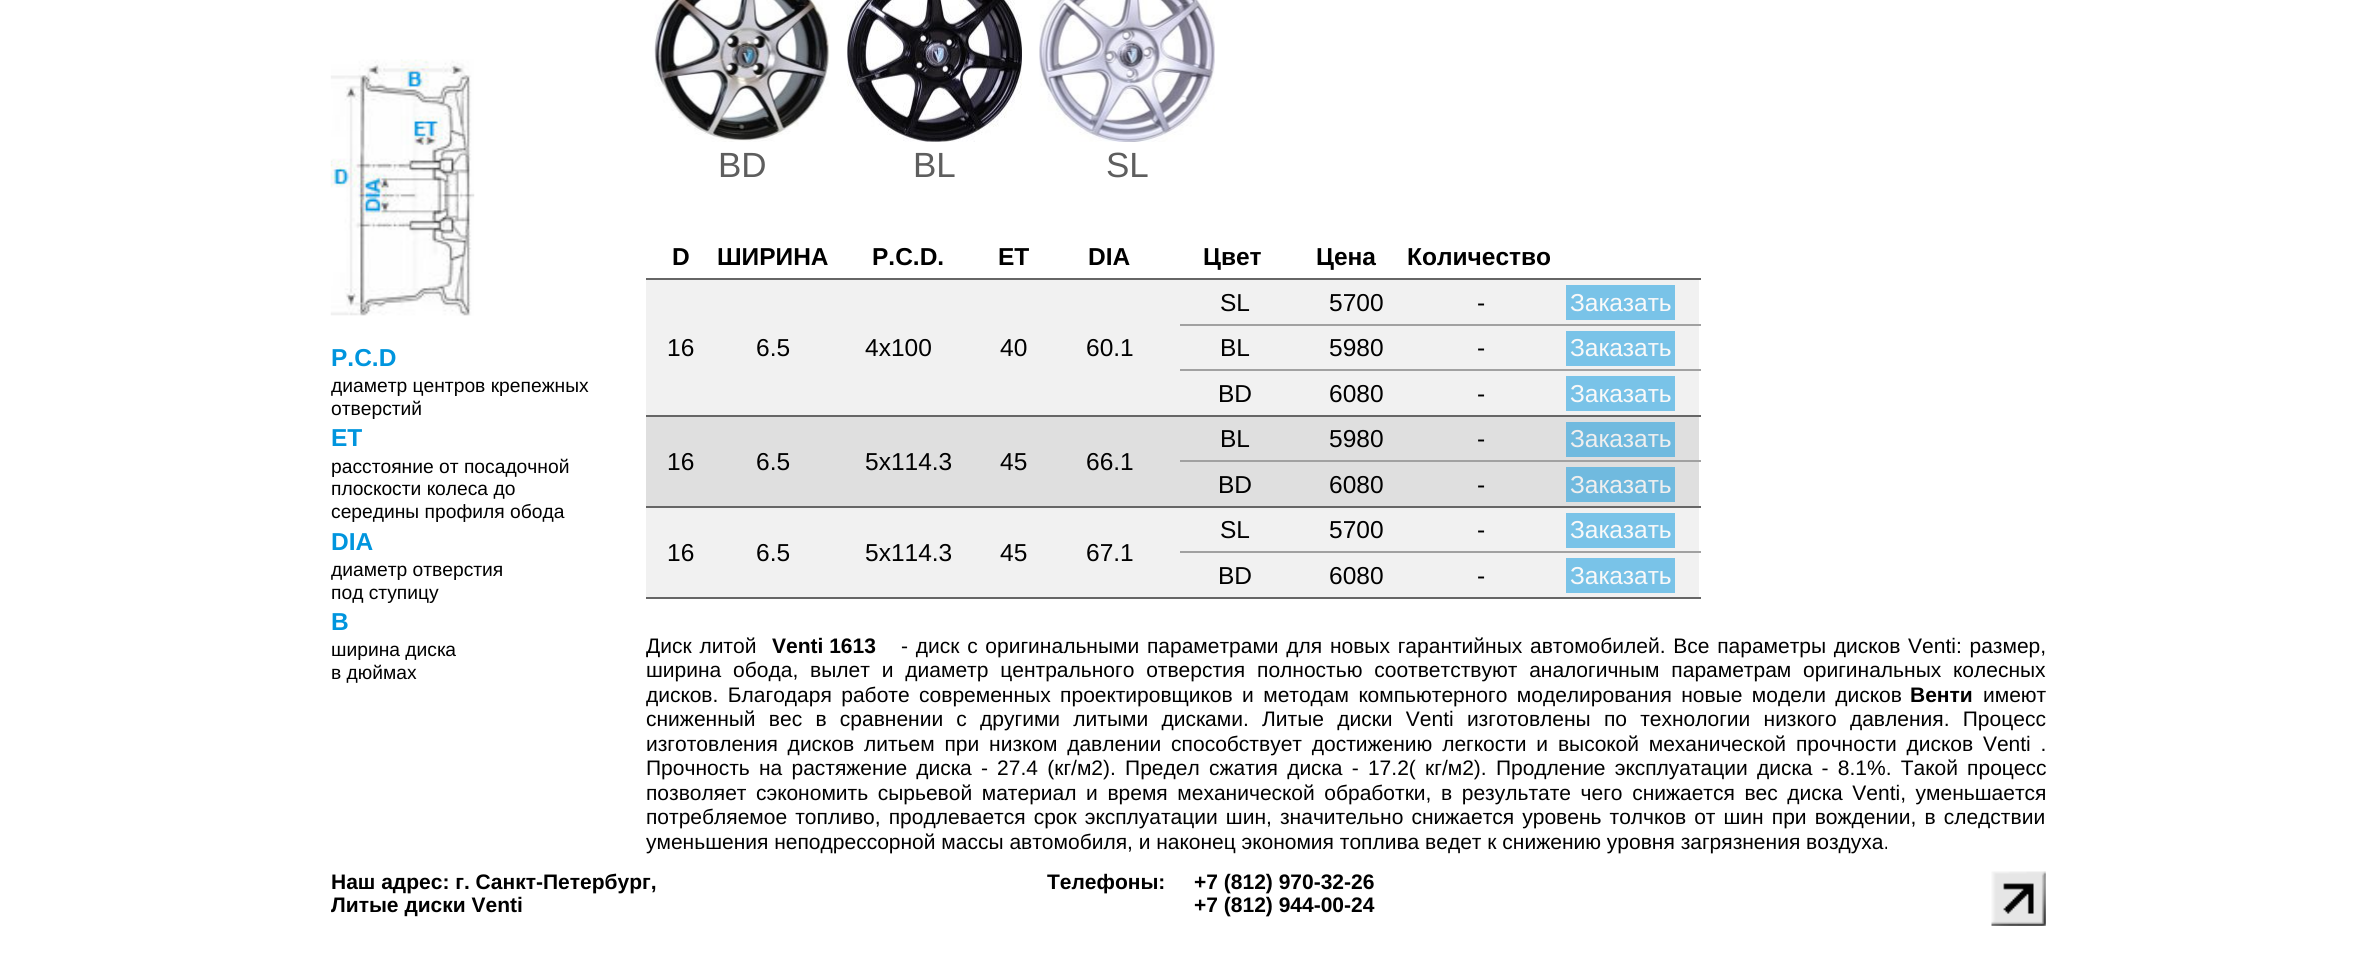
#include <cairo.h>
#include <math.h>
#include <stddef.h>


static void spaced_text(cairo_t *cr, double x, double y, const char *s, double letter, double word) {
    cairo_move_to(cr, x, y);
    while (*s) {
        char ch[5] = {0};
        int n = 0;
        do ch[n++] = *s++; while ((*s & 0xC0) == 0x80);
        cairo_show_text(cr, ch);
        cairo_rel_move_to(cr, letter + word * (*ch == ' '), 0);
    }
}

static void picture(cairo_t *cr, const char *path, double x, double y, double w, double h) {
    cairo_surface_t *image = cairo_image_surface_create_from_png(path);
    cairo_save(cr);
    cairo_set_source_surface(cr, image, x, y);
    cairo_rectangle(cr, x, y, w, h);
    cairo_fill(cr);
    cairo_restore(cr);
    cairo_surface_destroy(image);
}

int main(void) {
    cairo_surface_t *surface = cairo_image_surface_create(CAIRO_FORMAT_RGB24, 2375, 959);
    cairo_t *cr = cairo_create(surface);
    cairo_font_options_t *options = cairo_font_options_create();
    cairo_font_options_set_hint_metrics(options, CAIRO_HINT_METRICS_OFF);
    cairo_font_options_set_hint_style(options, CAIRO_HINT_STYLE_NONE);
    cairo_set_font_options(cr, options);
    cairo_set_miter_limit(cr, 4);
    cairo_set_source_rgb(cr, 1, 1, 1);
    cairo_paint(cr);
    picture(cr, "img1.png", 330, 59, 145, 257);
    cairo_select_font_face(cr, "Liberation Sans", CAIRO_FONT_SLANT_NORMAL, CAIRO_FONT_WEIGHT_BOLD);
    cairo_set_font_size(cr, 24.5);
    cairo_set_source_rgb(cr, 0, 0.584, 0.871);
    cairo_move_to(cr, 331, 366);
    cairo_show_text(cr, "P.C.D");
    cairo_select_font_face(cr, "Liberation Sans", CAIRO_FONT_SLANT_NORMAL, CAIRO_FONT_WEIGHT_NORMAL);
    cairo_set_font_size(cr, 19.25);
    cairo_set_source_rgb(cr, 0, 0, 0);
    cairo_move_to(cr, 331, 392);
    cairo_show_text(cr, "диаметр центров крепежных");
    cairo_move_to(cr, 331, 415);
    cairo_show_text(cr, "отверстий");
    cairo_select_font_face(cr, "Liberation Sans", CAIRO_FONT_SLANT_NORMAL, CAIRO_FONT_WEIGHT_BOLD);
    cairo_set_font_size(cr, 24.5);
    cairo_set_source_rgb(cr, 0, 0.584, 0.871);
    cairo_move_to(cr, 331, 446);
    cairo_show_text(cr, "ET");
    cairo_select_font_face(cr, "Liberation Sans", CAIRO_FONT_SLANT_NORMAL, CAIRO_FONT_WEIGHT_NORMAL);
    cairo_set_font_size(cr, 19.25);
    cairo_set_source_rgb(cr, 0, 0, 0);
    cairo_move_to(cr, 331, 473);
    cairo_show_text(cr, "расстояние от посадочной");
    cairo_move_to(cr, 331, 495);
    cairo_show_text(cr, "плоскости колеса до");
    cairo_move_to(cr, 331, 518);
    cairo_show_text(cr, "середины профиля обода");
    cairo_select_font_face(cr, "Liberation Sans", CAIRO_FONT_SLANT_NORMAL, CAIRO_FONT_WEIGHT_BOLD);
    cairo_set_font_size(cr, 24.5);
    cairo_set_source_rgb(cr, 0, 0.584, 0.871);
    cairo_move_to(cr, 331, 550);
    cairo_show_text(cr, "DIA");
    cairo_select_font_face(cr, "Liberation Sans", CAIRO_FONT_SLANT_NORMAL, CAIRO_FONT_WEIGHT_NORMAL);
    cairo_set_font_size(cr, 19.25);
    cairo_set_source_rgb(cr, 0, 0, 0);
    cairo_move_to(cr, 331, 576);
    cairo_show_text(cr, "диаметр отверстия");
    cairo_move_to(cr, 331, 599);
    cairo_show_text(cr, "под ступицу");
    cairo_select_font_face(cr, "Liberation Sans", CAIRO_FONT_SLANT_NORMAL, CAIRO_FONT_WEIGHT_BOLD);
    cairo_set_font_size(cr, 24.5);
    cairo_set_source_rgb(cr, 0, 0.584, 0.871);
    cairo_move_to(cr, 331, 630);
    cairo_show_text(cr, "B");
    cairo_select_font_face(cr, "Liberation Sans", CAIRO_FONT_SLANT_NORMAL, CAIRO_FONT_WEIGHT_NORMAL);
    cairo_set_font_size(cr, 19.25);
    cairo_set_source_rgb(cr, 0, 0, 0);
    cairo_move_to(cr, 331, 656);
    cairo_show_text(cr, "ширина диска");
    cairo_move_to(cr, 331, 679);
    cairo_show_text(cr, "в дюймах");
    picture(cr, "img2.png", 654, 0, 176, 142);
    cairo_set_font_size(cr, 35);
    cairo_set_source_rgb(cr, 0.369, 0.369, 0.369);
    cairo_move_to(cr, 718, 177);
    cairo_show_text(cr, "BD");
    picture(cr, "img3.png", 847, 0, 175, 142);
    cairo_move_to(cr, 913, 177);
    cairo_show_text(cr, "BL");
    picture(cr, "img4.png", 1039, 0, 176, 142);
    cairo_move_to(cr, 1106, 177);
    cairo_show_text(cr, "SL");
    cairo_select_font_face(cr, "Liberation Sans", CAIRO_FONT_SLANT_NORMAL, CAIRO_FONT_WEIGHT_BOLD);
    cairo_set_font_size(cr, 24.5);
    cairo_set_source_rgb(cr, 0, 0, 0);
    cairo_move_to(cr, 672, 265);
    cairo_show_text(cr, "D");
    cairo_move_to(cr, 717, 265);
    cairo_show_text(cr, "ШИРИНА");
    cairo_move_to(cr, 872, 265);
    cairo_show_text(cr, "P.C.D.");
    cairo_move_to(cr, 998, 265);
    cairo_show_text(cr, "ET");
    cairo_move_to(cr, 1088, 265);
    cairo_show_text(cr, "DIA");
    cairo_set_source_rgb(cr, 0.4, 0.4, 0.4);
    cairo_rectangle(cr, 646, 278, 1055, 2);
    cairo_fill(cr);
    cairo_set_source_rgb(cr, 0, 0, 0);
    cairo_move_to(cr, 1203, 265);
    cairo_show_text(cr, "Цвет");
    cairo_move_to(cr, 1316, 265);
    cairo_show_text(cr, "Цена");
    cairo_move_to(cr, 1407, 265);
    cairo_show_text(cr, "Количество");
    cairo_set_source_rgb(cr, 0.945, 0.945, 0.945);
    cairo_rectangle(cr, 646, 280, 1053, 135);
    cairo_fill(cr);
    cairo_select_font_face(cr, "Liberation Sans", CAIRO_FONT_SLANT_NORMAL, CAIRO_FONT_WEIGHT_NORMAL);
    cairo_set_source_rgb(cr, 0, 0, 0);
    cairo_move_to(cr, 667, 356);
    cairo_show_text(cr, "16");
    cairo_move_to(cr, 756, 356);
    cairo_show_text(cr, "6.5");
    cairo_move_to(cr, 865, 356);
    cairo_show_text(cr, "4x100");
    cairo_move_to(cr, 1000, 356);
    cairo_show_text(cr, "40");
    cairo_move_to(cr, 1086, 356);
    cairo_show_text(cr, "60.1");
    cairo_set_source_rgb(cr, 0.4, 0.4, 0.4);
    cairo_rectangle(cr, 646, 415, 1055, 2);
    cairo_fill(cr);
    cairo_set_source_rgb(cr, 0, 0, 0);
    cairo_move_to(cr, 1220, 311);
    cairo_show_text(cr, "SL");
    cairo_move_to(cr, 1329, 311);
    cairo_show_text(cr, "5700");
    cairo_move_to(cr, 1477, 311);
    cairo_show_text(cr, "-");
    cairo_set_source_rgb(cr, 0.475, 0.765, 0.91);
    cairo_rectangle(cr, 1566, 285, 109, 35);
    cairo_fill(cr);
    cairo_set_source_rgb(cr, 0.973, 0.973, 0.973);
    cairo_move_to(cr, 1570, 311);
    cairo_show_text(cr, "Заказать");
    cairo_set_source_rgb(cr, 0, 0, 0);
    cairo_move_to(cr, 1220, 356);
    cairo_show_text(cr, "BL");
    cairo_move_to(cr, 1329, 356);
    cairo_show_text(cr, "5980");
    cairo_move_to(cr, 1477, 356);
    cairo_show_text(cr, "-");
    cairo_set_source_rgb(cr, 0.631, 0.631, 0.631);
    cairo_rectangle(cr, 1180, 324, 521, 2);
    cairo_fill(cr);
    cairo_set_source_rgb(cr, 0.475, 0.765, 0.91);
    cairo_rectangle(cr, 1566, 331, 109, 35);
    cairo_fill(cr);
    cairo_set_source_rgb(cr, 0.973, 0.973, 0.973);
    cairo_move_to(cr, 1570, 356);
    cairo_show_text(cr, "Заказать");
    cairo_set_source_rgb(cr, 0, 0, 0);
    cairo_move_to(cr, 1218, 402);
    cairo_show_text(cr, "BD");
    cairo_move_to(cr, 1329, 402);
    cairo_show_text(cr, "6080");
    cairo_move_to(cr, 1477, 402);
    cairo_show_text(cr, "-");
    cairo_set_source_rgb(cr, 0.631, 0.631, 0.631);
    cairo_rectangle(cr, 1180, 369, 521, 2);
    cairo_fill(cr);
    cairo_set_source_rgb(cr, 0.475, 0.765, 0.91);
    cairo_rectangle(cr, 1566, 376, 109, 35);
    cairo_fill(cr);
    cairo_set_source_rgb(cr, 0.973, 0.973, 0.973);
    cairo_move_to(cr, 1570, 402);
    cairo_show_text(cr, "Заказать");
    cairo_set_source_rgb(cr, 0.875, 0.875, 0.875);
    cairo_rectangle(cr, 646, 417, 1053, 89);
    cairo_fill(cr);
    cairo_set_source_rgb(cr, 0, 0, 0);
    cairo_move_to(cr, 667, 470);
    cairo_show_text(cr, "16");
    cairo_move_to(cr, 756, 470);
    cairo_show_text(cr, "6.5");
    cairo_move_to(cr, 865, 470);
    cairo_show_text(cr, "5x114.3");
    cairo_move_to(cr, 1000, 470);
    cairo_show_text(cr, "45");
    cairo_move_to(cr, 1086, 470);
    cairo_show_text(cr, "66.1");
    cairo_set_source_rgb(cr, 0.4, 0.4, 0.4);
    cairo_rectangle(cr, 646, 506, 1055, 2);
    cairo_fill(cr);
    cairo_set_source_rgb(cr, 0, 0, 0);
    cairo_move_to(cr, 1220, 447);
    cairo_show_text(cr, "BL");
    cairo_move_to(cr, 1329, 447);
    cairo_show_text(cr, "5980");
    cairo_move_to(cr, 1477, 447);
    cairo_show_text(cr, "-");
    cairo_set_source_rgb(cr, 0.439, 0.729, 0.875);
    cairo_rectangle(cr, 1566, 422, 109, 35);
    cairo_fill(cr);
    cairo_set_source_rgb(cr, 0.937, 0.937, 0.937);
    cairo_move_to(cr, 1570, 447);
    cairo_show_text(cr, "Заказать");
    cairo_set_source_rgb(cr, 0, 0, 0);
    cairo_move_to(cr, 1218, 493);
    cairo_show_text(cr, "BD");
    cairo_move_to(cr, 1329, 493);
    cairo_show_text(cr, "6080");
    cairo_move_to(cr, 1477, 493);
    cairo_show_text(cr, "-");
    cairo_set_source_rgb(cr, 0.631, 0.631, 0.631);
    cairo_rectangle(cr, 1180, 460, 521, 2);
    cairo_fill(cr);
    cairo_set_source_rgb(cr, 0.439, 0.729, 0.875);
    cairo_rectangle(cr, 1566, 467, 109, 35);
    cairo_fill(cr);
    cairo_set_source_rgb(cr, 0.937, 0.937, 0.937);
    cairo_move_to(cr, 1570, 493);
    cairo_show_text(cr, "Заказать");
    cairo_set_source_rgb(cr, 0.945, 0.945, 0.945);
    cairo_rectangle(cr, 646, 508, 1053, 89);
    cairo_fill(cr);
    cairo_set_source_rgb(cr, 0, 0, 0);
    cairo_move_to(cr, 667, 561);
    cairo_show_text(cr, "16");
    cairo_move_to(cr, 756, 561);
    cairo_show_text(cr, "6.5");
    cairo_move_to(cr, 865, 561);
    cairo_show_text(cr, "5x114.3");
    cairo_move_to(cr, 1000, 561);
    cairo_show_text(cr, "45");
    cairo_move_to(cr, 1086, 561);
    cairo_show_text(cr, "67.1");
    cairo_set_source_rgb(cr, 0.4, 0.4, 0.4);
    cairo_rectangle(cr, 646, 597, 1055, 2);
    cairo_fill(cr);
    cairo_set_source_rgb(cr, 0, 0, 0);
    cairo_move_to(cr, 1220, 538);
    cairo_show_text(cr, "SL");
    cairo_move_to(cr, 1329, 538);
    cairo_show_text(cr, "5700");
    cairo_move_to(cr, 1477, 538);
    cairo_show_text(cr, "-");
    cairo_set_source_rgb(cr, 0.475, 0.765, 0.91);
    cairo_rectangle(cr, 1566, 513, 109, 35);
    cairo_fill(cr);
    cairo_set_source_rgb(cr, 0.973, 0.973, 0.973);
    cairo_move_to(cr, 1570, 538);
    cairo_show_text(cr, "Заказать");
    cairo_set_source_rgb(cr, 0, 0, 0);
    cairo_move_to(cr, 1218, 584);
    cairo_show_text(cr, "BD");
    cairo_move_to(cr, 1329, 584);
    cairo_show_text(cr, "6080");
    cairo_move_to(cr, 1477, 584);
    cairo_show_text(cr, "-");
    cairo_set_source_rgb(cr, 0.631, 0.631, 0.631);
    cairo_rectangle(cr, 1180, 551, 521, 2);
    cairo_fill(cr);
    cairo_set_source_rgb(cr, 0.475, 0.765, 0.91);
    cairo_rectangle(cr, 1566, 558, 109, 35);
    cairo_fill(cr);
    cairo_set_source_rgb(cr, 0.973, 0.973, 0.973);
    cairo_move_to(cr, 1570, 584);
    cairo_show_text(cr, "Заказать");
    cairo_set_font_size(cr, 21);
    cairo_set_source_rgb(cr, 0, 0, 0);
    spaced_text(cr, 646, 653, "Диск литой", 0, 1.9);
    cairo_select_font_face(cr, "Liberation Sans", CAIRO_FONT_SLANT_NORMAL, CAIRO_FONT_WEIGHT_BOLD);
    cairo_move_to(cr, 772, 653);
    cairo_show_text(cr, "Venti 1613");
    cairo_select_font_face(cr, "Liberation Sans", CAIRO_FONT_SLANT_NORMAL, CAIRO_FONT_WEIGHT_NORMAL);
    spaced_text(cr, 901, 653, "- диск с оригинальными параметрами для новых гарантийных автомобилей. Все параметры дисков Venti: размер,", 0, 1.9);
    spaced_text(cr, 646, 677, "ширина обода, вылет и диаметр центрального отверстия полностью соответствуют аналогичным параметрам оригинальных колесных", 0, 6);
    spaced_text(cr, 646, 702, "дисков. Благодаря работе современных проектировщиков и методам компьютерного моделирования новые модели дисков", 0, 3.6);
    cairo_select_font_face(cr, "Liberation Sans", CAIRO_FONT_SLANT_NORMAL, CAIRO_FONT_WEIGHT_BOLD);
    cairo_move_to(cr, 1910, 702);
    cairo_show_text(cr, "Венти");
    cairo_select_font_face(cr, "Liberation Sans", CAIRO_FONT_SLANT_NORMAL, CAIRO_FONT_WEIGHT_NORMAL);
    cairo_move_to(cr, 1983, 702);
    cairo_show_text(cr, "имеют");
    spaced_text(cr, 646, 726, "сниженный вес в сравнении с другими литыми дисками. Литые диски Venti изготовлены по технологии низкого давления. Процесс", 0, 7.4);
    spaced_text(cr, 646, 751, "изготовления дисков литьем при низком давлении способствует достижению легкости и высокой механической прочности дисков Venti .", 0, 4);
    spaced_text(cr, 646, 775, "Прочность на растяжение диска - 27.4 (кг/м2). Предел сжатия диска - 17.2( кг/м2). Продление эксплуатации диска - 8.1%. Такой процесс", 0, 3.4);
    spaced_text(cr, 646, 800, "позволяет сэкономить сырьевой материал и время механической обработки, в результате чего снижается вес диска Venti, уменьшается", 0, 3.75);
    spaced_text(cr, 646, 824, "потребляемое топливо, продлевается срок эксплуатации шин, значительно снижается уровень толчков от шин при вождении, в следствии", 0, 2.25);
    cairo_move_to(cr, 646, 849);
    cairo_show_text(cr, "уменьшения неподрессорной массы автомобиля, и наконец экономия топлива ведет к снижению уровня загрязнения воздуха.");
    cairo_select_font_face(cr, "Liberation Sans", CAIRO_FONT_SLANT_NORMAL, CAIRO_FONT_WEIGHT_BOLD);
    cairo_move_to(cr, 331, 889);
    cairo_show_text(cr, "Наш адрес: г. Санкт-Петербург,");
    cairo_move_to(cr, 331, 912);
    cairo_show_text(cr, "Литые диски Venti");
    cairo_move_to(cr, 1047, 889);
    cairo_show_text(cr, "Телефоны:");
    cairo_move_to(cr, 1194, 889);
    cairo_show_text(cr, "+7 (812) 970-32-26");
    cairo_move_to(cr, 1194, 912);
    cairo_show_text(cr, "+7 (812) 944-00-24");
    picture(cr, "img5.png", 1991, 871, 55, 55);
    cairo_surface_write_to_png(surface, "page.png");
    cairo_font_options_destroy(options);
    cairo_destroy(cr);
    cairo_surface_destroy(surface);
    return 0;
}
